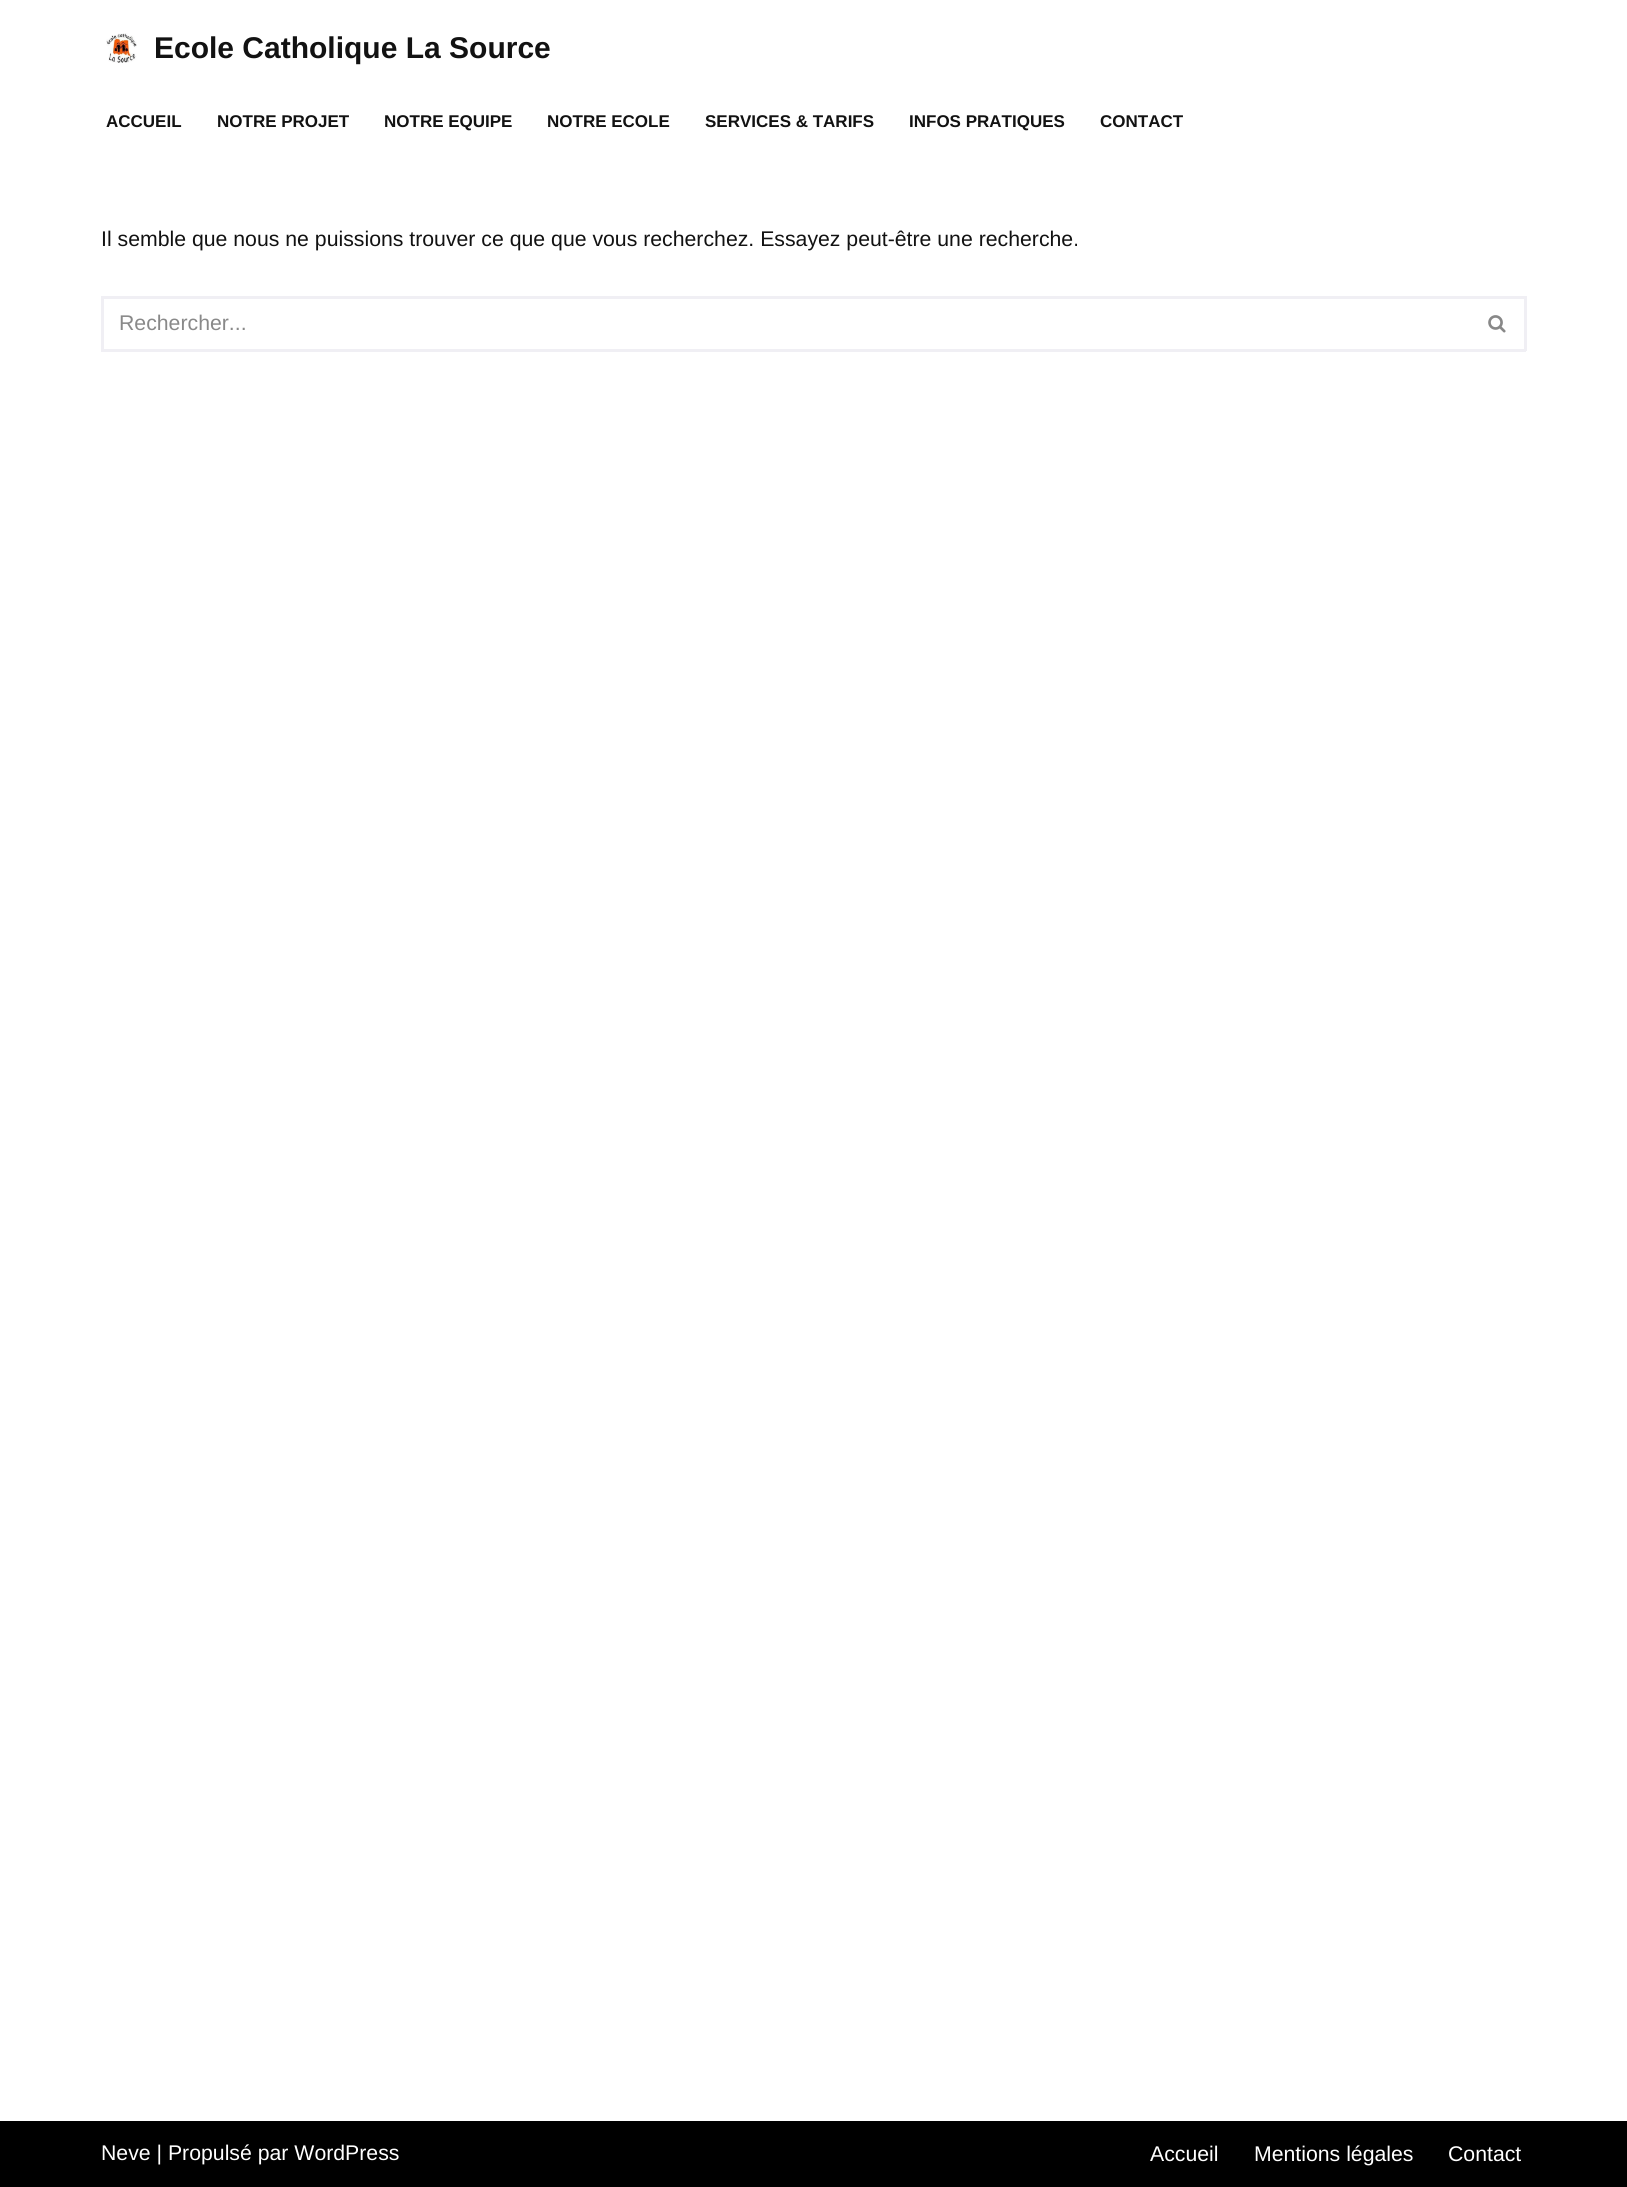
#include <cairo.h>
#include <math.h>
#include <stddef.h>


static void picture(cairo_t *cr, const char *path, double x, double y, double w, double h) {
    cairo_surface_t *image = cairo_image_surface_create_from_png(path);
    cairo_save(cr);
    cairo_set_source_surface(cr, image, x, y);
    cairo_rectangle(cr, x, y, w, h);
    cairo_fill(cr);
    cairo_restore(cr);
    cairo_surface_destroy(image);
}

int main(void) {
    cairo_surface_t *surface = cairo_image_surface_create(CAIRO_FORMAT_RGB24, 1627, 2187);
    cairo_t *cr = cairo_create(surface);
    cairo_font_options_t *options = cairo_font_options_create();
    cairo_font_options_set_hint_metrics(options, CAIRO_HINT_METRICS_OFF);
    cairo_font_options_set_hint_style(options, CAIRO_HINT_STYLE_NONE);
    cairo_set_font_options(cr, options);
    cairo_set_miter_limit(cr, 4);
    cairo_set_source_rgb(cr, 1, 1, 1);
    cairo_paint(cr);
    picture(cr, "img1.png", 106, 33, 31, 30);
    cairo_select_font_face(cr, "Liberation Sans", CAIRO_FONT_SLANT_NORMAL, CAIRO_FONT_WEIGHT_BOLD);
    cairo_set_font_size(cr, 30);
    cairo_set_source_rgb(cr, 0.071, 0.071, 0.071);
    cairo_move_to(cr, 154, 58);
    cairo_show_text(cr, "Ecole Catholique La Source");
    cairo_set_font_size(cr, 17);
    cairo_move_to(cr, 106, 127);
    cairo_show_text(cr, "ACCUEIL");
    cairo_move_to(cr, 217, 127);
    cairo_show_text(cr, "NOTRE PROJET");
    cairo_move_to(cr, 384, 127);
    cairo_show_text(cr, "NOTRE EQUIPE");
    cairo_move_to(cr, 547, 127);
    cairo_show_text(cr, "NOTRE ECOLE");
    cairo_move_to(cr, 705, 127);
    cairo_show_text(cr, "SERVICES & TARIFS");
    cairo_move_to(cr, 909, 127);
    cairo_show_text(cr, "INFOS PRATIQUES");
    cairo_move_to(cr, 1100, 127);
    cairo_show_text(cr, "CONTACT");
    cairo_select_font_face(cr, "Liberation Sans", CAIRO_FONT_SLANT_NORMAL, CAIRO_FONT_WEIGHT_NORMAL);
    cairo_set_font_size(cr, 21.25);
    cairo_move_to(cr, 101, 246);
    cairo_show_text(cr, "Il semble que nous ne puissions trouver ce que que vous recherchez. Essayez peut-être une recherche.");
    cairo_set_source_rgb(cr, 0.941, 0.937, 0.957);
    cairo_rectangle(cr, 101, 296, 1425, 3);
    cairo_fill(cr);
    cairo_rectangle(cr, 101, 349, 1369, 3);
    cairo_fill(cr);
    cairo_rectangle(cr, 101, 296, 3, 55);
    cairo_fill(cr);
    cairo_set_source_rgb(cr, 0.537, 0.537, 0.537);
    cairo_move_to(cr, 119, 330);
    cairo_show_text(cr, "Rechercher...");
    cairo_set_source_rgb(cr, 0.941, 0.937, 0.957);
    cairo_rectangle(cr, 1524, 296, 3, 55);
    cairo_fill(cr);
    cairo_rectangle(cr, 1470, 349, 56, 3);
    cairo_fill(cr);
    picture(cr, "img2.png", 1488, 315, 18, 18);
    cairo_set_source_rgb(cr, 0, 0, 0);
    cairo_rectangle(cr, 0, 2121, 1627, 66);
    cairo_fill(cr);
    cairo_set_source_rgb(cr, 1, 1, 1);
    cairo_move_to(cr, 101, 2160);
    cairo_show_text(cr, "Neve | Propulsé par WordPress");
    cairo_move_to(cr, 1150, 2161);
    cairo_show_text(cr, "Accueil");
    cairo_move_to(cr, 1254, 2161);
    cairo_show_text(cr, "Mentions légales");
    cairo_move_to(cr, 1448, 2161);
    cairo_show_text(cr, "Contact");
    cairo_surface_write_to_png(surface, "page.png");
    cairo_font_options_destroy(options);
    cairo_destroy(cr);
    cairo_surface_destroy(surface);
    return 0;
}
